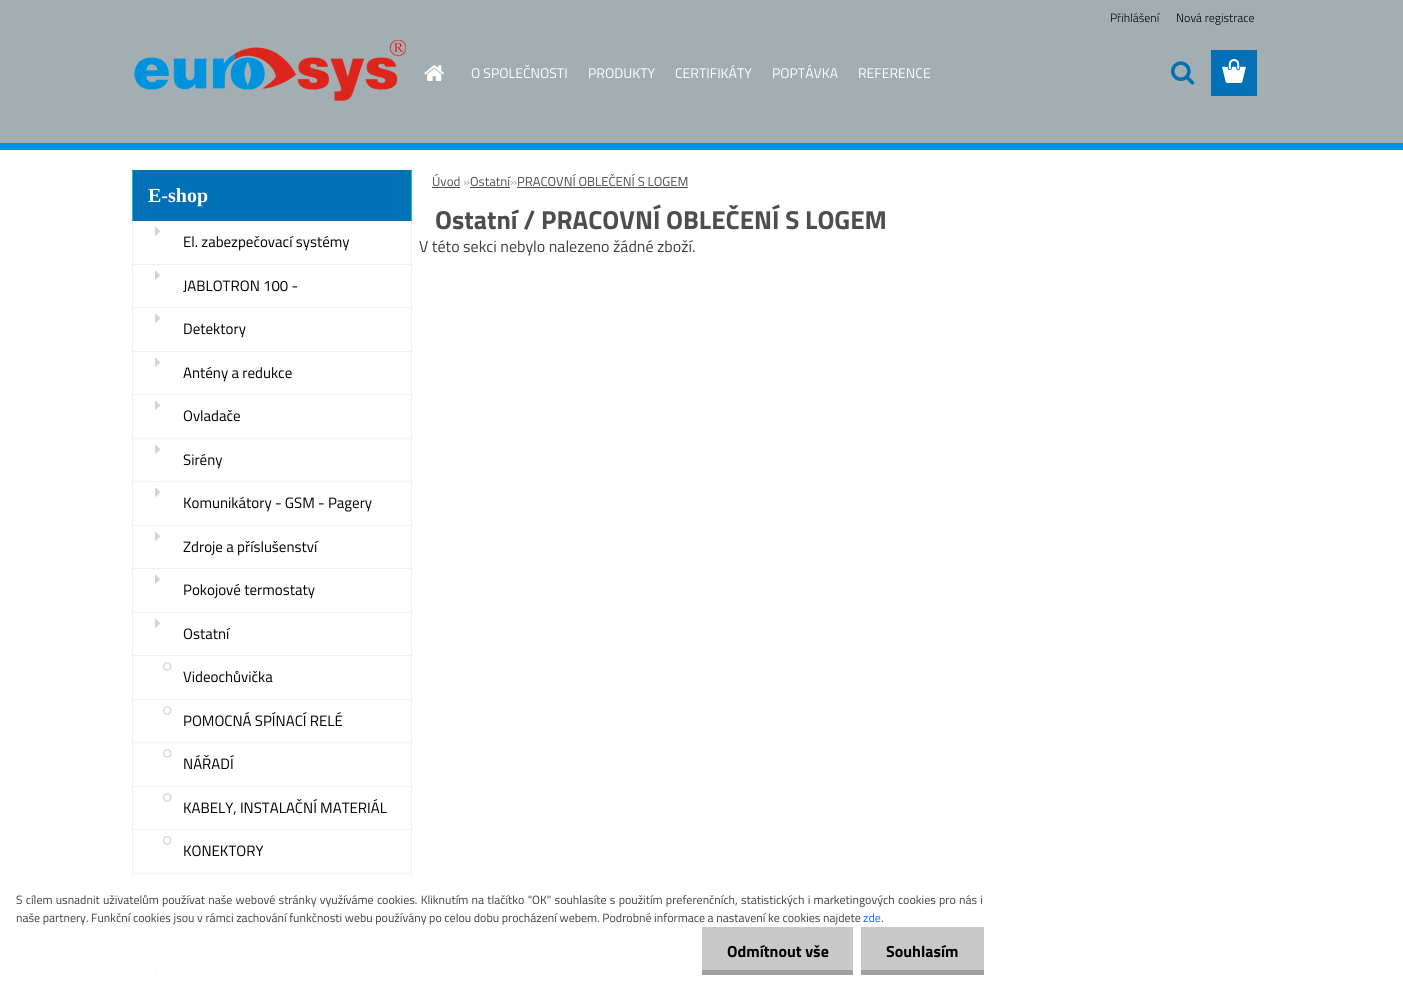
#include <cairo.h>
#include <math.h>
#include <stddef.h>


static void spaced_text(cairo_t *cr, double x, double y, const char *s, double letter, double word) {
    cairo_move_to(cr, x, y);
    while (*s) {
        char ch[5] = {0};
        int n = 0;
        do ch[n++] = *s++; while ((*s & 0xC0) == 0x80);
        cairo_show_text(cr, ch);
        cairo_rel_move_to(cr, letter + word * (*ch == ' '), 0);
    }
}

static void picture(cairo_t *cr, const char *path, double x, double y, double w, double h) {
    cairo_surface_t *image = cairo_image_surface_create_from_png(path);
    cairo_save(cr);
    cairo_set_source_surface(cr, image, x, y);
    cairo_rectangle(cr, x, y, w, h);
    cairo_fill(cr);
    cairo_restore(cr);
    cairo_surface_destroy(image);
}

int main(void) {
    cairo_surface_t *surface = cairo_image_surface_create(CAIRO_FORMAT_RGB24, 1403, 991);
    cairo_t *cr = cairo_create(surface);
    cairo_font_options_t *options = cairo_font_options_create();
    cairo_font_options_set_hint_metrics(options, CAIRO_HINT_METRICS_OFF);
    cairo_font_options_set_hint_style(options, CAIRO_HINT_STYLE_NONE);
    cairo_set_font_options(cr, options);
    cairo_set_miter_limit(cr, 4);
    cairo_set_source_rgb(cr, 1, 1, 1);
    cairo_paint(cr);
    cairo_set_source_rgb(cr, 0.639, 0.682, 0.698);
    cairo_rectangle(cr, 0, 0, 1403, 143);
    cairo_fill(cr);
    cairo_select_font_face(cr, "Titillium Web Light", CAIRO_FONT_SLANT_NORMAL, CAIRO_FONT_WEIGHT_NORMAL);
    cairo_set_font_size(cr, 12);
    cairo_set_source_rgb(cr, 0, 0, 0);
    cairo_move_to(cr, 1110, 22);
    cairo_show_text(cr, "Přihlášení");
    cairo_move_to(cr, 1176, 22);
    cairo_show_text(cr, "Nová registrace");
    cairo_set_source_rgb(cr, 0.004, 0.439, 0.718);
    cairo_rectangle(cr, 1211, 50, 46, 46);
    cairo_fill(cr);
    picture(cr, "img1.png", 1222, 59, 24, 24);
    cairo_rectangle(cr, 133, 170, 278, 51);
    cairo_fill(cr);
    cairo_set_source_rgb(cr, 0.145, 0.737, 0.718);
    cairo_rectangle(cr, 411, 170, 1, 51);
    cairo_fill(cr);
    cairo_rectangle(cr, 132, 170, 1, 51);
    cairo_fill(cr);
    cairo_select_font_face(cr, "Liberation Serif", CAIRO_FONT_SLANT_NORMAL, CAIRO_FONT_WEIGHT_BOLD);
    cairo_set_font_size(cr, 20);
    cairo_set_source_rgb(cr, 1, 1, 1);
    cairo_move_to(cr, 148, 202);
    cairo_show_text(cr, "E-shop");
    cairo_set_source_rgb(cr, 0.941, 0.941, 0.941);
    cairo_rectangle(cr, 411, 221, 1, 654);
    cairo_fill(cr);
    cairo_rectangle(cr, 132, 264, 280, 1);
    cairo_fill(cr);
    cairo_rectangle(cr, 132, 221, 1, 44);
    cairo_fill(cr);
    picture(cr, "img2.png", 155, 226, 5, 10);
    cairo_select_font_face(cr, "Titillium Web", CAIRO_FONT_SLANT_NORMAL, CAIRO_FONT_WEIGHT_NORMAL);
    cairo_set_font_size(cr, 15);
    cairo_set_source_rgb(cr, 0, 0, 0);
    cairo_move_to(cr, 183, 247);
    cairo_show_text(cr, "El. zabezpečovací systémy");
    cairo_set_source_rgb(cr, 0.941, 0.941, 0.941);
    cairo_rectangle(cr, 132, 307, 280, 1);
    cairo_fill(cr);
    cairo_rectangle(cr, 132, 265, 1, 43);
    cairo_fill(cr);
    picture(cr, "img2.png", 155, 270, 5, 10);
    cairo_set_source_rgb(cr, 0, 0, 0);
    cairo_move_to(cr, 183, 291);
    cairo_show_text(cr, "JABLOTRON 100 -");
    cairo_set_source_rgb(cr, 0.941, 0.941, 0.941);
    cairo_rectangle(cr, 132, 351, 280, 1);
    cairo_fill(cr);
    cairo_rectangle(cr, 132, 308, 1, 44);
    cairo_fill(cr);
    picture(cr, "img2.png", 155, 313, 5, 10);
    cairo_set_source_rgb(cr, 0, 0, 0);
    cairo_move_to(cr, 183, 334);
    cairo_show_text(cr, "Detektory");
    cairo_set_source_rgb(cr, 0.941, 0.941, 0.941);
    cairo_rectangle(cr, 132, 394, 280, 1);
    cairo_fill(cr);
    cairo_rectangle(cr, 132, 352, 1, 43);
    cairo_fill(cr);
    picture(cr, "img2.png", 155, 357, 5, 10);
    cairo_set_source_rgb(cr, 0, 0, 0);
    cairo_move_to(cr, 183, 378);
    cairo_show_text(cr, "Antény a redukce");
    cairo_set_source_rgb(cr, 0.941, 0.941, 0.941);
    cairo_rectangle(cr, 132, 438, 280, 1);
    cairo_fill(cr);
    cairo_rectangle(cr, 132, 395, 1, 44);
    cairo_fill(cr);
    picture(cr, "img2.png", 155, 400, 5, 10);
    cairo_set_source_rgb(cr, 0, 0, 0);
    cairo_move_to(cr, 183, 421);
    cairo_show_text(cr, "Ovladače");
    cairo_set_source_rgb(cr, 0.941, 0.941, 0.941);
    cairo_rectangle(cr, 132, 481, 280, 1);
    cairo_fill(cr);
    cairo_rectangle(cr, 132, 439, 1, 43);
    cairo_fill(cr);
    picture(cr, "img2.png", 155, 444, 5, 10);
    cairo_set_source_rgb(cr, 0, 0, 0);
    cairo_move_to(cr, 183, 465);
    cairo_show_text(cr, "Sirény");
    cairo_set_source_rgb(cr, 0.941, 0.941, 0.941);
    cairo_rectangle(cr, 132, 525, 280, 1);
    cairo_fill(cr);
    cairo_rectangle(cr, 132, 482, 1, 44);
    cairo_fill(cr);
    picture(cr, "img2.png", 155, 487, 5, 10);
    cairo_set_source_rgb(cr, 0, 0, 0);
    cairo_move_to(cr, 183, 508);
    cairo_show_text(cr, "Komunikátory - GSM - Pagery");
    cairo_set_source_rgb(cr, 0.941, 0.941, 0.941);
    cairo_rectangle(cr, 132, 568, 280, 1);
    cairo_fill(cr);
    cairo_rectangle(cr, 132, 526, 1, 43);
    cairo_fill(cr);
    picture(cr, "img2.png", 155, 531, 5, 10);
    cairo_set_source_rgb(cr, 0, 0, 0);
    cairo_move_to(cr, 183, 552);
    cairo_show_text(cr, "Zdroje a příslušenství");
    cairo_set_source_rgb(cr, 0.941, 0.941, 0.941);
    cairo_rectangle(cr, 132, 612, 280, 1);
    cairo_fill(cr);
    cairo_rectangle(cr, 132, 569, 1, 44);
    cairo_fill(cr);
    picture(cr, "img2.png", 155, 574, 5, 10);
    cairo_set_source_rgb(cr, 0, 0, 0);
    cairo_move_to(cr, 183, 595);
    cairo_show_text(cr, "Pokojové termostaty");
    cairo_set_source_rgb(cr, 0.941, 0.941, 0.941);
    cairo_rectangle(cr, 132, 655, 280, 1);
    cairo_fill(cr);
    cairo_rectangle(cr, 132, 613, 1, 43);
    cairo_fill(cr);
    picture(cr, "img2.png", 155, 618, 5, 10);
    cairo_set_source_rgb(cr, 0, 0, 0);
    cairo_move_to(cr, 183, 639);
    cairo_show_text(cr, "Ostatní");
    cairo_set_source_rgb(cr, 0.941, 0.941, 0.941);
    cairo_rectangle(cr, 132, 699, 280, 1);
    cairo_fill(cr);
    cairo_rectangle(cr, 132, 656, 1, 44);
    cairo_fill(cr);
    picture(cr, "img3.png", 163, 662, 9, 9);
    cairo_set_source_rgb(cr, 0, 0, 0);
    cairo_move_to(cr, 183, 682);
    cairo_show_text(cr, "Videochůvička");
    cairo_set_source_rgb(cr, 0.941, 0.941, 0.941);
    cairo_rectangle(cr, 132, 742, 280, 1);
    cairo_fill(cr);
    cairo_rectangle(cr, 132, 700, 1, 43);
    cairo_fill(cr);
    picture(cr, "img3.png", 163, 706, 9, 9);
    cairo_set_source_rgb(cr, 0, 0, 0);
    cairo_move_to(cr, 183, 726);
    cairo_show_text(cr, "POMOCNÁ SPÍNACÍ RELÉ");
    cairo_set_source_rgb(cr, 0.941, 0.941, 0.941);
    cairo_rectangle(cr, 132, 786, 280, 1);
    cairo_fill(cr);
    cairo_rectangle(cr, 132, 743, 1, 44);
    cairo_fill(cr);
    picture(cr, "img3.png", 163, 749, 9, 9);
    cairo_set_source_rgb(cr, 0, 0, 0);
    cairo_move_to(cr, 183, 769);
    cairo_show_text(cr, "NÁŘADÍ");
    cairo_set_source_rgb(cr, 0.941, 0.941, 0.941);
    cairo_rectangle(cr, 132, 829, 280, 1);
    cairo_fill(cr);
    cairo_rectangle(cr, 132, 787, 1, 43);
    cairo_fill(cr);
    picture(cr, "img3.png", 163, 793, 9, 9);
    cairo_set_source_rgb(cr, 0, 0, 0);
    cairo_move_to(cr, 183, 813);
    cairo_show_text(cr, "KABELY, INSTALAČNÍ MATERIÁL");
    cairo_set_source_rgb(cr, 0.941, 0.941, 0.941);
    cairo_rectangle(cr, 132, 873, 280, 1);
    cairo_fill(cr);
    cairo_rectangle(cr, 132, 830, 1, 45);
    cairo_fill(cr);
    picture(cr, "img3.png", 163, 836, 9, 9);
    cairo_set_source_rgb(cr, 0, 0, 0);
    cairo_move_to(cr, 183, 856);
    cairo_show_text(cr, "KONEKTORY");
    picture(cr, "img4.png", 163, 881, 9, 9);
    picture(cr, "img5.png", 155, 924, 5, 10);
    picture(cr, "img5.png", 155, 967, 5, 10);
    cairo_set_font_size(cr, 13);
    cairo_set_source_rgb(cr, 0.302, 0.302, 0.302);
    cairo_move_to(cr, 432, 186);
    cairo_show_text(cr, "Úvod");
    cairo_rectangle(cr, 432, 187, 28, 1);
    cairo_fill(cr);
    cairo_set_source_rgb(cr, 0.647, 0.647, 0.647);
    cairo_move_to(cr, 463, 186);
    cairo_show_text(cr, "»");
    cairo_set_source_rgb(cr, 0.302, 0.302, 0.302);
    cairo_move_to(cr, 470, 186);
    cairo_show_text(cr, "Ostatní");
    cairo_rectangle(cr, 470, 187, 40, 1);
    cairo_fill(cr);
    cairo_set_source_rgb(cr, 0.647, 0.647, 0.647);
    cairo_move_to(cr, 510, 186);
    cairo_show_text(cr, "»");
    cairo_set_source_rgb(cr, 0.302, 0.302, 0.302);
    cairo_move_to(cr, 517, 186);
    cairo_show_text(cr, "PRACOVNÍ OBLEČENÍ S LOGEM");
    cairo_rectangle(cr, 517, 187, 171, 1);
    cairo_fill(cr);
    cairo_select_font_face(cr, "Titillium Web", CAIRO_FONT_SLANT_NORMAL, CAIRO_FONT_WEIGHT_BOLD);
    cairo_set_font_size(cr, 26);
    cairo_move_to(cr, 435, 229);
    cairo_show_text(cr, "Ostatní / PRACOVNÍ OBLEČENÍ S LOGEM");
    cairo_select_font_face(cr, "Titillium Web", CAIRO_FONT_SLANT_NORMAL, CAIRO_FONT_WEIGHT_NORMAL);
    cairo_set_font_size(cr, 16);
    cairo_set_source_rgb(cr, 0.247, 0.247, 0.247);
    cairo_move_to(cr, 419, 252);
    cairo_show_text(cr, "V této sekci nebylo nalezeno žádné zboží.");
    cairo_set_source_rgb(cr, 0, 0.576, 0.867);
    cairo_rectangle(cr, 0, 143, 1403, 7);
    cairo_fill(cr);
    picture(cr, "img6.png", 134, 40, 272, 61);
    picture(cr, "img7.png", 424, 65, 20, 16);
    cairo_set_font_size(cr, 14);
    cairo_set_source_rgb(cr, 1, 1, 1);
    cairo_move_to(cr, 471, 78);
    cairo_show_text(cr, "O SPOLEČNOSTI");
    cairo_move_to(cr, 588, 78);
    cairo_show_text(cr, "PRODUKTY");
    cairo_move_to(cr, 675, 78);
    cairo_show_text(cr, "CERTIFIKÁTY");
    cairo_move_to(cr, 772, 78);
    cairo_show_text(cr, "POPTÁVKA");
    cairo_move_to(cr, 858, 78);
    cairo_show_text(cr, "REFERENCE");
    picture(cr, "img8.png", 1171, 61, 24, 24);
    cairo_set_font_size(cr, 12);
    cairo_set_source_rgb(cr, 0.247, 0.247, 0.247);
    spaced_text(cr, 16, 904, "S cílem usnadnit uživatelům používat naše webové stránky využíváme cookies. Kliknutím na tlačítko \"OK\" souhlasíte s použitím preferenčních, statistických i marketingových cookies pro nás i", 0, 0.6);
    cairo_move_to(cr, 16, 922);
    cairo_show_text(cr, "naše partnery. Funkční cookies jsou v rámci zachování funkčnosti webu používány po celou dobu procházení webem. Podrobné informace a nastavení ke cookies najdete");
    cairo_set_source_rgb(cr, 0.051, 0.431, 0.992);
    cairo_move_to(cr, 863, 922);
    cairo_show_text(cr, "zde");
    cairo_set_source_rgb(cr, 0.247, 0.247, 0.247);
    cairo_move_to(cr, 881, 922);
    cairo_show_text(cr, ".");
    cairo_set_source_rgb(cr, 0.784, 0.784, 0.784);
    cairo_rectangle(cr, 702, 927, 151, 43);
    cairo_fill(cr);
    cairo_set_source_rgb(cr, 0.627, 0.627, 0.627);
    cairo_rectangle(cr, 702, 970, 151, 5);
    cairo_fill(cr);
    cairo_select_font_face(cr, "Titillium Web", CAIRO_FONT_SLANT_NORMAL, CAIRO_FONT_WEIGHT_BOLD);
    cairo_set_font_size(cr, 16);
    cairo_set_source_rgb(cr, 0, 0, 0);
    cairo_move_to(cr, 727, 957);
    cairo_show_text(cr, "Odmítnout vše");
    cairo_set_source_rgb(cr, 0.784, 0.784, 0.784);
    cairo_rectangle(cr, 861, 927, 123, 43);
    cairo_fill(cr);
    cairo_set_source_rgb(cr, 0.627, 0.627, 0.627);
    cairo_rectangle(cr, 861, 970, 123, 5);
    cairo_fill(cr);
    cairo_set_source_rgb(cr, 0, 0, 0);
    cairo_move_to(cr, 886, 957);
    cairo_show_text(cr, "Souhlasím");
    cairo_surface_write_to_png(surface, "page.png");
    cairo_font_options_destroy(options);
    cairo_destroy(cr);
    cairo_surface_destroy(surface);
    return 0;
}
